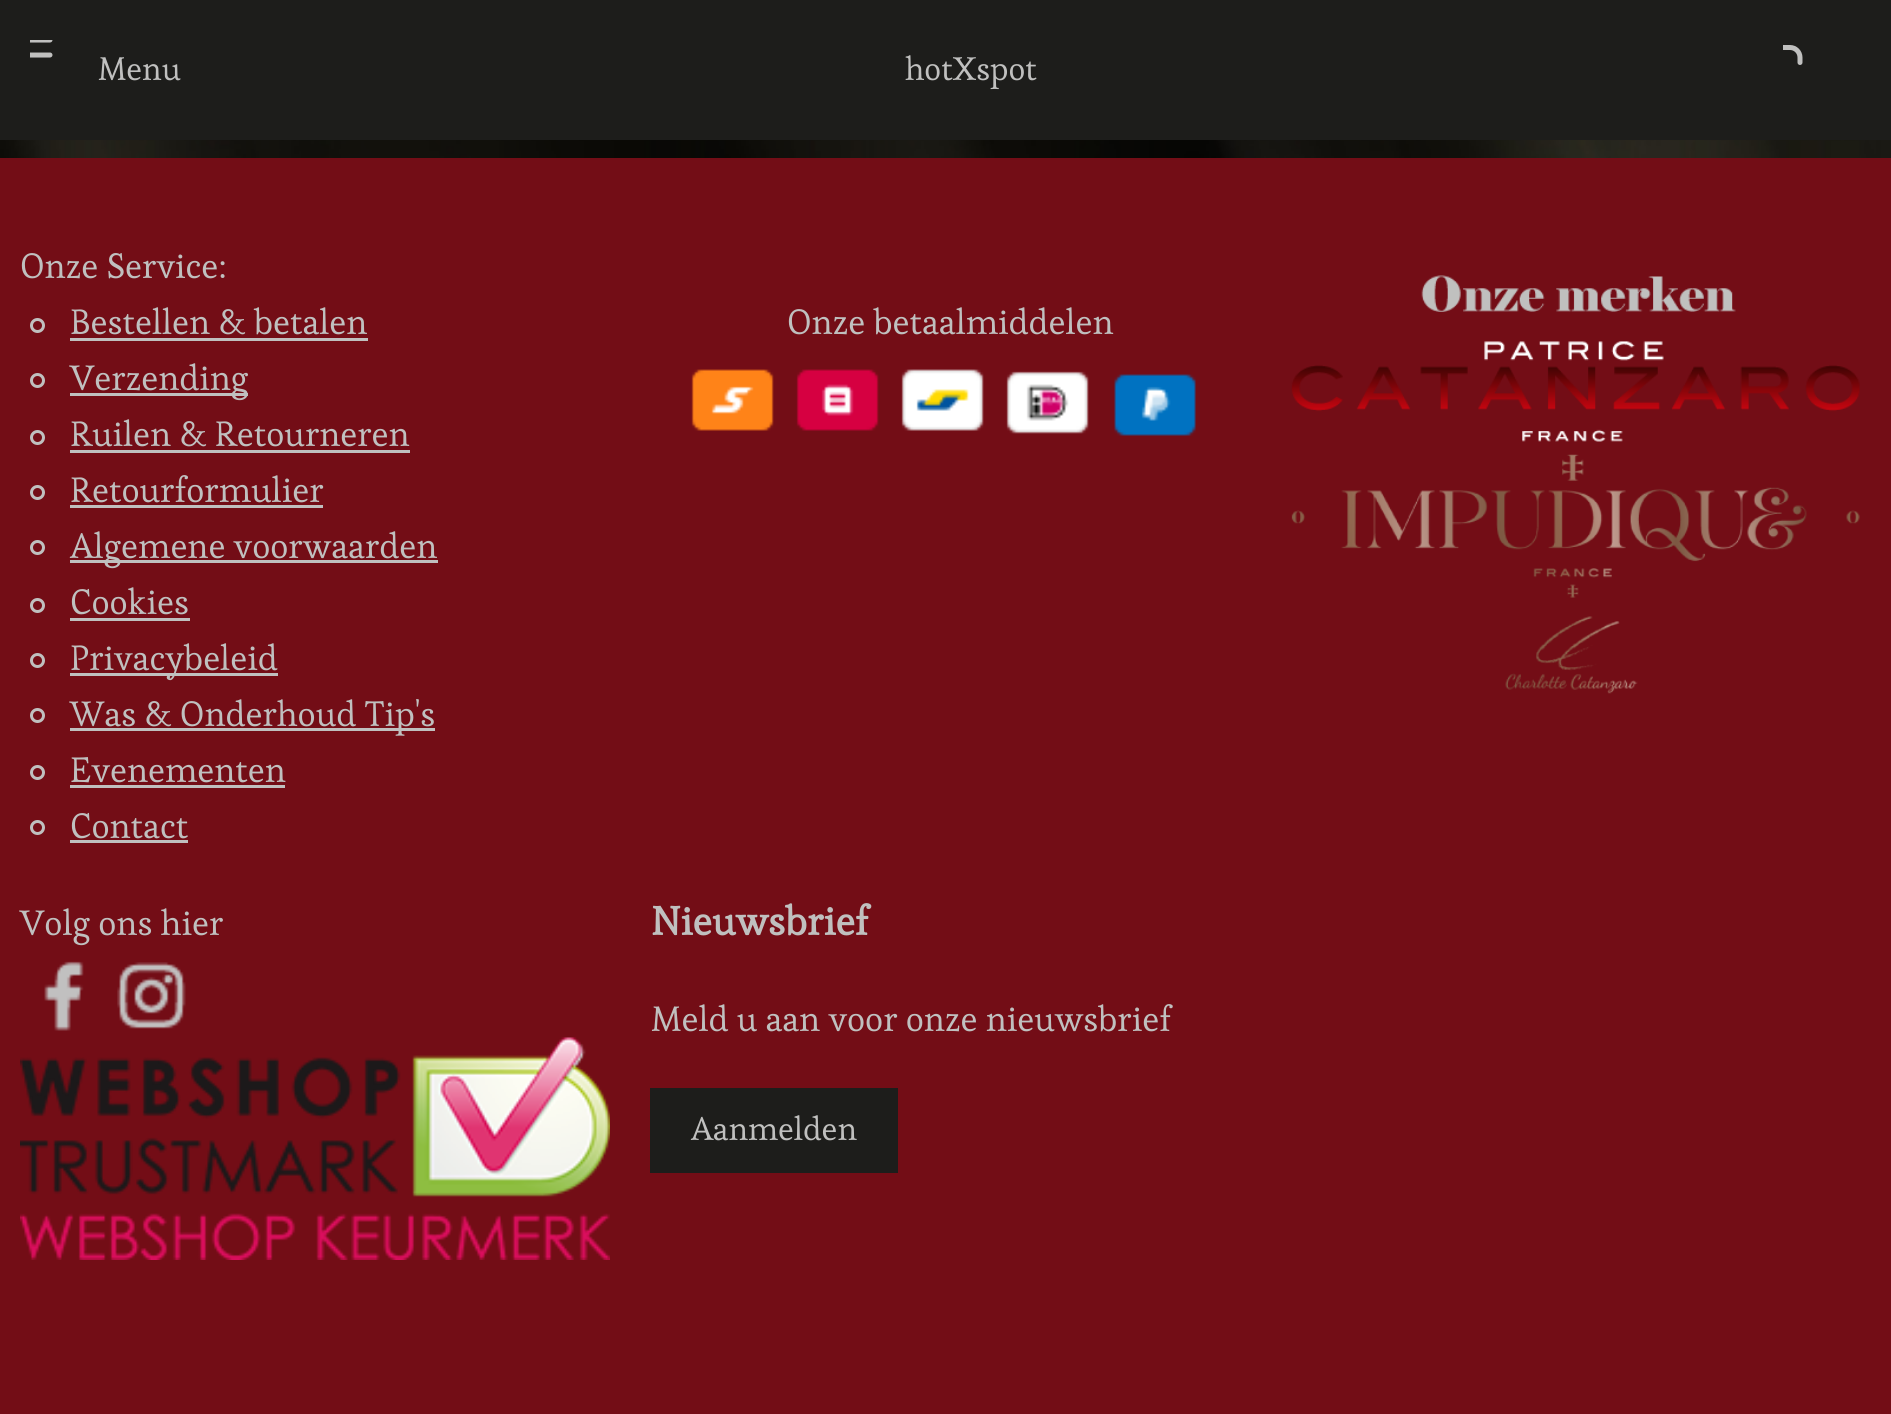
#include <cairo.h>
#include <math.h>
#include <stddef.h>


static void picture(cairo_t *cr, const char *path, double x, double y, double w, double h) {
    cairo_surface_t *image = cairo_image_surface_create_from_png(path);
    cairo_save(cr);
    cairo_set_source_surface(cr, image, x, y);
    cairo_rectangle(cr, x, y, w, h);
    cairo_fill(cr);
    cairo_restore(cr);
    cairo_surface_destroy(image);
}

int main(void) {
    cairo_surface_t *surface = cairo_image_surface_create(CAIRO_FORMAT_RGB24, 1891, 1414);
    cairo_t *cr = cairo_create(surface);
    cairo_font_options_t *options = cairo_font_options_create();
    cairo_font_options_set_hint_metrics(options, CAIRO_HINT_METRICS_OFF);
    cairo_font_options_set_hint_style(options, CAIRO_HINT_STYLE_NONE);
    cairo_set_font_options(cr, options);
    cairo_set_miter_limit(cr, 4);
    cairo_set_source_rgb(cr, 1, 1, 1);
    cairo_paint(cr);
    cairo_set_source_rgb(cr, 0.114, 0.114, 0.106);
    cairo_rectangle(cr, 0, 0, 1891, 140);
    cairo_fill(cr);
    picture(cr, "img1.png", 30, 40, 23, 18);
    cairo_select_font_face(cr, "Esteban", CAIRO_FONT_SLANT_NORMAL, CAIRO_FONT_WEIGHT_NORMAL);
    cairo_set_font_size(cr, 32.5);
    cairo_set_source_rgb(cr, 0.753, 0.753, 0.749);
    cairo_move_to(cr, 98, 80);
    cairo_show_text(cr, "Menu");
    cairo_move_to(cr, 905, 80);
    cairo_show_text(cr, "hotXspot");
    picture(cr, "img2.png", 1783, 45, 20, 20);
    picture(cr, "img3.png", 0, 140, 1891, 18);
    cairo_set_source_rgb(cr, 0.451, 0.051, 0.086);
    cairo_rectangle(cr, 0, 158, 1891, 1256);
    cairo_fill(cr);
    cairo_set_font_size(cr, 35);
    cairo_set_source_rgb(cr, 0.753, 0.753, 0.749);
    cairo_move_to(cr, 20, 278);
    cairo_show_text(cr, "Onze Service:");
    cairo_new_path(cr);
    cairo_arc(cr, 37.5, 325.5, 6, 0, 2 * M_PI);
    cairo_set_line_width(cr, 3);
    cairo_stroke(cr);
    cairo_move_to(cr, 70, 334);
    cairo_show_text(cr, "Bestellen & betalen");
    cairo_rectangle(cr, 70, 338, 298, 3);
    cairo_fill(cr);
    cairo_arc(cr, 37.5, 380.5, 6, 0, 2 * M_PI);
    cairo_stroke(cr);
    cairo_rectangle(cr, 70, 393, 178, 3);
    cairo_fill(cr);
    cairo_move_to(cr, 70, 390);
    cairo_show_text(cr, "Verzending");
    cairo_new_path(cr);
    cairo_arc(cr, 37.5, 437.5, 6, 0, 2 * M_PI);
    cairo_stroke(cr);
    cairo_move_to(cr, 70, 446);
    cairo_show_text(cr, "Ruilen & Retourneren");
    cairo_rectangle(cr, 70, 450, 340, 3);
    cairo_fill(cr);
    cairo_arc(cr, 37.5, 492.5, 6, 0, 2 * M_PI);
    cairo_stroke(cr);
    cairo_move_to(cr, 70, 502);
    cairo_show_text(cr, "Retourformulier");
    cairo_rectangle(cr, 70, 505, 253, 3);
    cairo_fill(cr);
    cairo_arc(cr, 37.5, 547.5, 6, 0, 2 * M_PI);
    cairo_stroke(cr);
    cairo_rectangle(cr, 70, 560, 368, 3);
    cairo_fill(cr);
    cairo_move_to(cr, 70, 558);
    cairo_show_text(cr, "Algemene voorwaarden");
    cairo_new_path(cr);
    cairo_arc(cr, 37.5, 605.5, 6, 0, 2 * M_PI);
    cairo_stroke(cr);
    cairo_move_to(cr, 70, 614);
    cairo_show_text(cr, "Cookies");
    cairo_rectangle(cr, 70, 618, 120, 3);
    cairo_fill(cr);
    cairo_arc(cr, 37.5, 660.5, 6, 0, 2 * M_PI);
    cairo_stroke(cr);
    cairo_rectangle(cr, 70, 673, 208, 3);
    cairo_fill(cr);
    cairo_move_to(cr, 70, 670);
    cairo_show_text(cr, "Privacybeleid");
    cairo_new_path(cr);
    cairo_arc(cr, 37.5, 715.5, 6, 0, 2 * M_PI);
    cairo_stroke(cr);
    cairo_rectangle(cr, 70, 728, 365, 3);
    cairo_fill(cr);
    cairo_move_to(cr, 70, 726);
    cairo_show_text(cr, "Was & Onderhoud Tip's");
    cairo_new_path(cr);
    cairo_arc(cr, 37.5, 772.5, 6, 0, 2 * M_PI);
    cairo_stroke(cr);
    cairo_move_to(cr, 70, 782);
    cairo_show_text(cr, "Evenementen");
    cairo_rectangle(cr, 70, 785, 215, 3);
    cairo_fill(cr);
    cairo_arc(cr, 37.5, 827.5, 6, 0, 2 * M_PI);
    cairo_stroke(cr);
    cairo_move_to(cr, 70, 838);
    cairo_show_text(cr, "Contact");
    cairo_rectangle(cr, 70, 840, 118, 3);
    cairo_fill(cr);
    cairo_move_to(cr, 787, 334);
    cairo_show_text(cr, "Onze betaalmiddelen");
    picture(cr, "img4.png", 691, 369, 505, 67);
    picture(cr, "img5.png", 1291, 275, 569, 419);
    cairo_move_to(cr, 20, 935);
    cairo_show_text(cr, "Volg ons hier");
    picture(cr, "img6.png", 44, 961, 40, 70);
    picture(cr, "img7.png", 117, 962, 69, 67);
    picture(cr, "img8.png", 20, 1037, 590, 223);
    cairo_select_font_face(cr, "Esteban", CAIRO_FONT_SLANT_NORMAL, CAIRO_FONT_WEIGHT_BOLD);
    cairo_set_font_size(cr, 40);
    cairo_move_to(cr, 651, 935);
    cairo_show_text(cr, "Nieuwsbrief");
    cairo_select_font_face(cr, "Esteban", CAIRO_FONT_SLANT_NORMAL, CAIRO_FONT_WEIGHT_NORMAL);
    cairo_set_font_size(cr, 35);
    cairo_move_to(cr, 651, 1031);
    cairo_show_text(cr, "Meld u aan voor onze nieuwsbrief");
    cairo_set_source_rgb(cr, 0.114, 0.114, 0.106);
    cairo_rectangle(cr, 650, 1088, 248, 85);
    cairo_fill(cr);
    cairo_set_font_size(cr, 32.5);
    cairo_set_source_rgb(cr, 0.753, 0.753, 0.749);
    cairo_move_to(cr, 691, 1140);
    cairo_show_text(cr, "Aanmelden");
    cairo_surface_write_to_png(surface, "page.png");
    cairo_font_options_destroy(options);
    cairo_destroy(cr);
    cairo_surface_destroy(surface);
    return 0;
}
